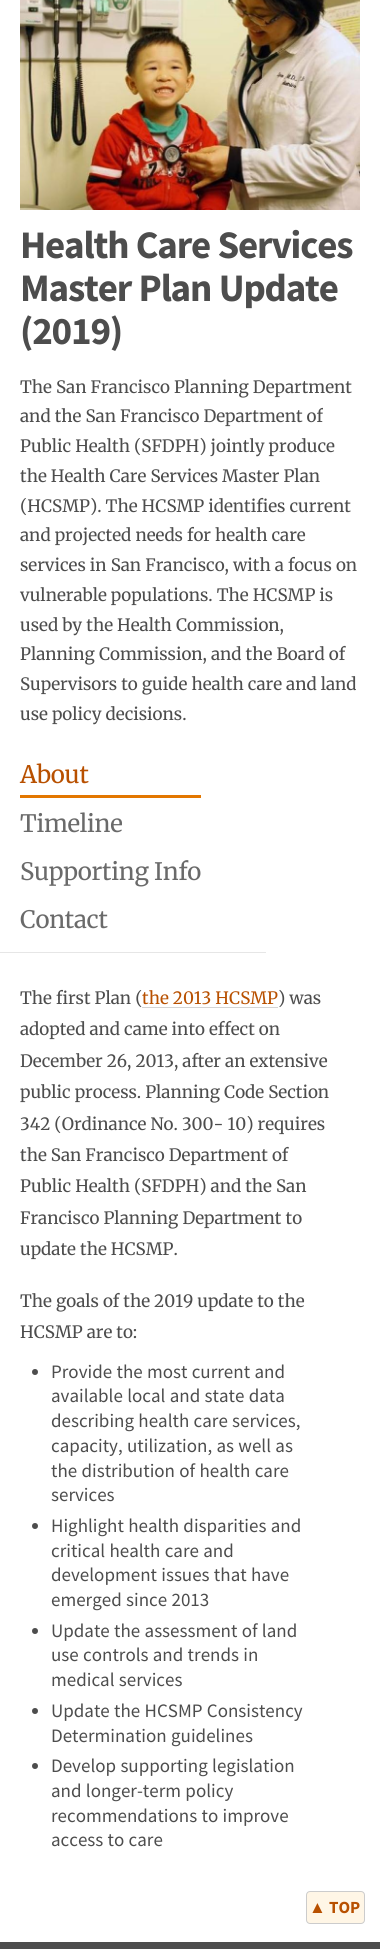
#include <cairo.h>
#include <math.h>
#include <stddef.h>


static void spaced_text(cairo_t *cr, double x, double y, const char *s, double letter, double word) {
    cairo_move_to(cr, x, y);
    while (*s) {
        char ch[5] = {0};
        int n = 0;
        do ch[n++] = *s++; while ((*s & 0xC0) == 0x80);
        cairo_show_text(cr, ch);
        cairo_rel_move_to(cr, letter + word * (*ch == ' '), 0);
    }
}

static void round_rect(cairo_t *cr, double x, double y, double w, double h, double r) {
    cairo_new_sub_path(cr);
    cairo_arc(cr, x + w - r, y + h - r, r, 0, M_PI / 2);
    cairo_arc(cr, x + r, y + h - r, r, M_PI / 2, M_PI);
    cairo_arc(cr, x + r, y + r, r, M_PI, 1.5 * M_PI);
    cairo_arc(cr, x + w - r, y + r, r, 1.5 * M_PI, 2 * M_PI);
    cairo_close_path(cr);
}

static void picture(cairo_t *cr, const char *path, double x, double y, double w, double h) {
    cairo_surface_t *image = cairo_image_surface_create_from_png(path);
    cairo_save(cr);
    cairo_set_source_surface(cr, image, x, y);
    cairo_rectangle(cr, x, y, w, h);
    cairo_fill(cr);
    cairo_restore(cr);
    cairo_surface_destroy(image);
}

int main(void) {
    cairo_surface_t *surface = cairo_image_surface_create(CAIRO_FORMAT_RGB24, 380, 1949);
    cairo_t *cr = cairo_create(surface);
    cairo_font_options_t *options = cairo_font_options_create();
    cairo_font_options_set_hint_metrics(options, CAIRO_HINT_METRICS_OFF);
    cairo_font_options_set_hint_style(options, CAIRO_HINT_STYLE_NONE);
    cairo_set_font_options(cr, options);
    cairo_set_miter_limit(cr, 4);
    cairo_set_source_rgb(cr, 1, 1, 1);
    cairo_paint(cr);
    picture(cr, "img1.png", 20, 0, 340, 210);
    cairo_select_font_face(cr, "Source Sans Pro", CAIRO_FONT_SLANT_NORMAL, CAIRO_FONT_WEIGHT_BOLD);
    cairo_set_font_size(cr, 39);
    cairo_set_source_rgb(cr, 0.302, 0.302, 0.302);
    spaced_text(cr, 20, 258, "Health Care Services", -1.2, 1);
    spaced_text(cr, 20, 301, "Master Plan Update", -1.2, 1);
    spaced_text(cr, 20, 344, "(2019)", -1.2, 0);
    cairo_select_font_face(cr, "Merriweather", CAIRO_FONT_SLANT_NORMAL, CAIRO_FONT_WEIGHT_NORMAL);
    cairo_set_font_size(cr, 17);
    cairo_move_to(cr, 20, 393);
    cairo_show_text(cr, "The San Francisco Planning Department");
    cairo_move_to(cr, 20, 422);
    cairo_show_text(cr, "and the San Francisco Department of");
    cairo_move_to(cr, 20, 452);
    cairo_show_text(cr, "Public Health (SFDPH) jointly produce");
    cairo_move_to(cr, 20, 482);
    cairo_show_text(cr, "the Health Care Services Master Plan");
    cairo_move_to(cr, 20, 512);
    cairo_show_text(cr, "(HCSMP). The HCSMP identifies current");
    cairo_move_to(cr, 20, 541);
    cairo_show_text(cr, "and projected needs for health care");
    cairo_move_to(cr, 20, 571);
    cairo_show_text(cr, "services in San Francisco, with a focus on");
    cairo_move_to(cr, 20, 601);
    cairo_show_text(cr, "vulnerable populations. The HCSMP is");
    cairo_move_to(cr, 20, 631);
    cairo_show_text(cr, "used by the Health Commission,");
    cairo_move_to(cr, 20, 660);
    cairo_show_text(cr, "Planning Commission, and the Board of");
    cairo_move_to(cr, 20, 690);
    cairo_show_text(cr, "Supervisors to guide health care and land");
    cairo_move_to(cr, 20, 720);
    cairo_show_text(cr, "use policy decisions.");
    cairo_set_source_rgb(cr, 0.902, 0.902, 0.902);
    cairo_rectangle(cr, 0, 952, 266, 1);
    cairo_fill(cr);
    cairo_set_source_rgb(cr, 0.89, 0.467, 0);
    cairo_rectangle(cr, 20, 795, 181, 3);
    cairo_fill(cr);
    cairo_set_font_size(cr, 24);
    cairo_set_source_rgb(cr, 0.722, 0.314, 0);
    spaced_text(cr, 20, 783, "About", -0.25, 0);
    cairo_set_source_rgb(cr, 0.416, 0.416, 0.416);
    spaced_text(cr, 20, 832, "Timeline", -0.25, 0);
    spaced_text(cr, 20, 880, "Supporting Info", -0.25, 0);
    spaced_text(cr, 20, 928, "Contact", -0.25, 0);
    cairo_set_font_size(cr, 17);
    cairo_set_source_rgb(cr, 0.302, 0.302, 0.302);
    cairo_move_to(cr, 20, 1004);
    cairo_show_text(cr, "The first Plan (");
    cairo_set_source_rgb(cr, 0.722, 0.314, 0);
    cairo_move_to(cr, 142, 1004);
    cairo_show_text(cr, "the 2013 HCSMP");
    cairo_new_path(cr);
    cairo_move_to(cr, 142.5, 1007.5);
    cairo_line_to(cr, 278.5, 1007.5);
    cairo_set_source_rgb(cr, 0.667, 0.667, 0.667);
    cairo_set_line_width(cr, 1);
    cairo_set_dash(cr, (double[]){1, 1}, 2, 0);
    cairo_stroke(cr);
    cairo_set_source_rgb(cr, 0.302, 0.302, 0.302);
    cairo_move_to(cr, 278, 1004);
    cairo_show_text(cr, ") was");
    cairo_move_to(cr, 20, 1035);
    cairo_show_text(cr, "adopted and came into effect on");
    cairo_move_to(cr, 20, 1067);
    cairo_show_text(cr, "December 26, 2013, after an extensive");
    cairo_move_to(cr, 20, 1098);
    cairo_show_text(cr, "public process. Planning Code Section");
    cairo_move_to(cr, 20, 1130);
    cairo_show_text(cr, "342 (Ordinance No. 300- 10) requires");
    cairo_move_to(cr, 20, 1161);
    cairo_show_text(cr, "the San Francisco Department of");
    cairo_move_to(cr, 20, 1192);
    cairo_show_text(cr, "Public Health (SFDPH) and the San");
    cairo_move_to(cr, 20, 1224);
    cairo_show_text(cr, "Francisco Planning Department to");
    cairo_move_to(cr, 20, 1255);
    cairo_show_text(cr, "update the HCSMP.");
    cairo_move_to(cr, 20, 1307);
    cairo_show_text(cr, "The goals of the 2019 update to the");
    cairo_move_to(cr, 20, 1338);
    cairo_show_text(cr, "HCSMP are to:");
    cairo_new_path(cr);
    cairo_arc(cr, 35, 1372, 3, 0, 2 * M_PI);
    cairo_fill(cr);
    cairo_select_font_face(cr, "Source Sans Pro", CAIRO_FONT_SLANT_NORMAL, CAIRO_FONT_WEIGHT_NORMAL);
    cairo_set_font_size(cr, 19);
    spaced_text(cr, 51, 1378, "Provide the most current and", 0, 0.5);
    spaced_text(cr, 51, 1402, "available local and state data", 0, 0.5);
    spaced_text(cr, 51, 1427, "describing health care services,", 0, 0.5);
    spaced_text(cr, 51, 1452, "capacity, utilization, as well as", 0, 0.5);
    spaced_text(cr, 51, 1477, "the distribution of health care", 0, 0.5);
    cairo_move_to(cr, 51, 1501);
    cairo_show_text(cr, "services");
    cairo_new_path(cr);
    cairo_arc(cr, 35, 1526, 3, 0, 2 * M_PI);
    cairo_fill(cr);
    spaced_text(cr, 51, 1532, "Highlight health disparities and", 0, 0.5);
    spaced_text(cr, 51, 1557, "critical health care and", 0, 0.5);
    spaced_text(cr, 51, 1581, "development issues that have", 0, 0.5);
    spaced_text(cr, 51, 1606, "emerged since 2013", 0, 0.5);
    cairo_new_path(cr);
    cairo_arc(cr, 35, 1631, 3, 0, 2 * M_PI);
    cairo_fill(cr);
    spaced_text(cr, 51, 1637, "Update the assessment of land", 0, 0.5);
    spaced_text(cr, 51, 1661, "use controls and trends in", 0, 0.5);
    spaced_text(cr, 51, 1686, "medical services", 0, 0.5);
    cairo_new_path(cr);
    cairo_arc(cr, 35, 1711, 3, 0, 2 * M_PI);
    cairo_fill(cr);
    spaced_text(cr, 51, 1717, "Update the HCSMP Consistency", 0, 0.5);
    spaced_text(cr, 51, 1742, "Determination guidelines", 0, 0.5);
    cairo_new_path(cr);
    cairo_arc(cr, 35, 1766, 3, 0, 2 * M_PI);
    cairo_fill(cr);
    spaced_text(cr, 51, 1772, "Develop supporting legislation", 0, 0.5);
    spaced_text(cr, 51, 1797, "and longer-term policy", 0, 0.5);
    spaced_text(cr, 51, 1822, "recommendations to improve", 0, 0.5);
    spaced_text(cr, 51, 1846, "access to care", 0, 0.5);
    cairo_rectangle(cr, 0, 1942, 380, 7);
    cairo_fill(cr);
    cairo_set_source_rgb(cr, 1, 0.961, 0.902);
    round_rect(cr, 306.5, 1891.5, 58, 32, 3.5);
    cairo_fill_preserve(cr);
    cairo_set_source_rgb(cr, 0.8, 0.8, 0.8);
    cairo_set_dash(cr, NULL, 0, 0);
    cairo_stroke(cr);
    cairo_select_font_face(cr, "Liberation Serif", CAIRO_FONT_SLANT_NORMAL, CAIRO_FONT_WEIGHT_BOLD);
    cairo_set_font_size(cr, 17);
    cairo_set_source_rgb(cr, 0.722, 0.314, 0);
    cairo_move_to(cr, 309, 1913);
    cairo_show_text(cr, "▲");
    cairo_select_font_face(cr, "Source Sans Pro", CAIRO_FONT_SLANT_NORMAL, CAIRO_FONT_WEIGHT_BOLD);
    cairo_move_to(cr, 329, 1913);
    cairo_show_text(cr, "TOP");
    cairo_surface_write_to_png(surface, "page.png");
    cairo_font_options_destroy(options);
    cairo_destroy(cr);
    cairo_surface_destroy(surface);
    return 0;
}
